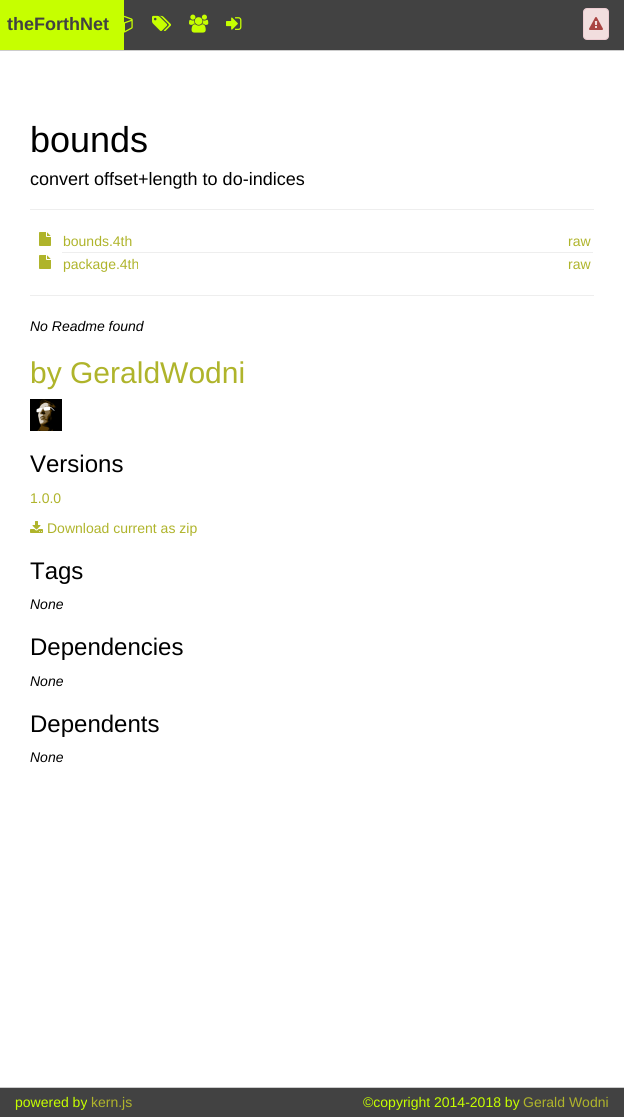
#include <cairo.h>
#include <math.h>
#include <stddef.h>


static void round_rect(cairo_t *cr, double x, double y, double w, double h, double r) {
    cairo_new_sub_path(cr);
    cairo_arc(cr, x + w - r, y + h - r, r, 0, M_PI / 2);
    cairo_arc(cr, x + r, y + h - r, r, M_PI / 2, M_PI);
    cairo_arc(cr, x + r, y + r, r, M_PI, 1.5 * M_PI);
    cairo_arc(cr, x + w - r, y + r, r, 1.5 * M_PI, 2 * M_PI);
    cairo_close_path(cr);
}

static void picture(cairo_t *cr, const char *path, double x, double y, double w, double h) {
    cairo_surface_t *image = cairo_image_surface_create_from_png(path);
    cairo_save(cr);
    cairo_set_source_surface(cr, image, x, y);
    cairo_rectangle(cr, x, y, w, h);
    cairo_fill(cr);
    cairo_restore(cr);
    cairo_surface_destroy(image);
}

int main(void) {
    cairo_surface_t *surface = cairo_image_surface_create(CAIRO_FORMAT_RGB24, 624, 1117);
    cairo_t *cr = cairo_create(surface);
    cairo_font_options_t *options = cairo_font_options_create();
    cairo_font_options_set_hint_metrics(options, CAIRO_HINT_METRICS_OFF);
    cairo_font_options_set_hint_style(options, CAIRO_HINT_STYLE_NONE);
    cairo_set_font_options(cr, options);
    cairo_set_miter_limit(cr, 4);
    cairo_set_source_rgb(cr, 1, 1, 1);
    cairo_paint(cr);
    cairo_set_source_rgb(cr, 0.259, 0.259, 0.259);
    cairo_rectangle(cr, 124, 0, 500, 50);
    cairo_fill(cr);
    cairo_set_source_rgb(cr, 0.8, 0.8, 0.8);
    cairo_rectangle(cr, 0, 50, 624, 1);
    cairo_fill(cr);
    cairo_set_source_rgb(cr, 0.776, 1, 0);
    cairo_rectangle(cr, 0, 0, 124, 50);
    cairo_fill(cr);
    cairo_select_font_face(cr, "Liberation Sans", CAIRO_FONT_SLANT_NORMAL, CAIRO_FONT_WEIGHT_BOLD);
    cairo_set_font_size(cr, 18);
    cairo_set_source_rgb(cr, 0.259, 0.259, 0.259);
    cairo_move_to(cr, 7, 30);
    cairo_show_text(cr, "theForthNet");
    picture(cr, "img1.png", 124, 15, 9, 18);
    picture(cr, "img2.png", 152, 15, 20, 16);
    picture(cr, "img3.png", 189, 14, 20, 19);
    picture(cr, "img4.png", 226, 17, 16, 13);
    cairo_set_source_rgb(cr, 0.949, 0.871, 0.871);
    round_rect(cr, 583.5, 8.5, 25, 31, 3.5);
    cairo_fill_preserve(cr);
    cairo_set_source_rgb(cr, 0.922, 0.8, 0.82);
    cairo_set_line_width(cr, 1);
    cairo_stroke(cr);
    picture(cr, "img5.png", 589, 17, 14, 13);
    cairo_select_font_face(cr, "Liberation Sans", CAIRO_FONT_SLANT_NORMAL, CAIRO_FONT_WEIGHT_NORMAL);
    cairo_set_font_size(cr, 36);
    cairo_set_source_rgb(cr, 0, 0, 0);
    cairo_move_to(cr, 30, 152);
    cairo_show_text(cr, "bounds");
    cairo_set_font_size(cr, 18);
    cairo_move_to(cr, 30, 185);
    cairo_show_text(cr, "convert offset+length to do-indices");
    cairo_set_source_rgb(cr, 0.933, 0.933, 0.933);
    cairo_rectangle(cr, 30, 209, 564, 1);
    cairo_fill(cr);
    cairo_rectangle(cr, 62, 252, 531, 1);
    cairo_fill(cr);
    picture(cr, "img6.png", 39, 232, 12, 14);
    cairo_set_font_size(cr, 14);
    cairo_set_source_rgb(cr, 0.686, 0.706, 0.169);
    cairo_move_to(cr, 63, 246);
    cairo_show_text(cr, "bounds.4th");
    cairo_move_to(cr, 568, 246);
    cairo_show_text(cr, "raw");
    picture(cr, "img6.png", 39, 255, 12, 14);
    cairo_move_to(cr, 63, 269);
    cairo_show_text(cr, "package.4th");
    cairo_move_to(cr, 568, 269);
    cairo_show_text(cr, "raw");
    cairo_set_source_rgb(cr, 0.933, 0.933, 0.933);
    cairo_rectangle(cr, 30, 295, 564, 1);
    cairo_fill(cr);
    cairo_select_font_face(cr, "Liberation Sans", CAIRO_FONT_SLANT_ITALIC, CAIRO_FONT_WEIGHT_NORMAL);
    cairo_set_source_rgb(cr, 0, 0, 0);
    cairo_move_to(cr, 30, 331);
    cairo_show_text(cr, "No Readme found");
    cairo_select_font_face(cr, "Liberation Sans", CAIRO_FONT_SLANT_NORMAL, CAIRO_FONT_WEIGHT_NORMAL);
    cairo_set_font_size(cr, 30);
    cairo_set_source_rgb(cr, 0.686, 0.706, 0.169);
    cairo_move_to(cr, 30, 383);
    cairo_show_text(cr, "by GeraldWodni");
    picture(cr, "img7.png", 30, 399, 32, 32);
    cairo_set_font_size(cr, 24);
    cairo_set_source_rgb(cr, 0, 0, 0);
    cairo_move_to(cr, 30, 472);
    cairo_show_text(cr, "Versions");
    cairo_set_font_size(cr, 14);
    cairo_set_source_rgb(cr, 0.686, 0.706, 0.169);
    cairo_move_to(cr, 30, 503);
    cairo_show_text(cr, "1.0.0");
    picture(cr, "img8.png", 30, 521, 13, 12);
    cairo_move_to(cr, 47, 533);
    cairo_show_text(cr, "Download current as zip");
    cairo_set_font_size(cr, 24);
    cairo_set_source_rgb(cr, 0, 0, 0);
    cairo_move_to(cr, 30, 579);
    cairo_show_text(cr, "Tags");
    cairo_select_font_face(cr, "Liberation Sans", CAIRO_FONT_SLANT_ITALIC, CAIRO_FONT_WEIGHT_NORMAL);
    cairo_set_font_size(cr, 14);
    cairo_move_to(cr, 30, 609);
    cairo_show_text(cr, "None");
    cairo_select_font_face(cr, "Liberation Sans", CAIRO_FONT_SLANT_NORMAL, CAIRO_FONT_WEIGHT_NORMAL);
    cairo_set_font_size(cr, 24);
    cairo_move_to(cr, 30, 655);
    cairo_show_text(cr, "Dependencies");
    cairo_select_font_face(cr, "Liberation Sans", CAIRO_FONT_SLANT_ITALIC, CAIRO_FONT_WEIGHT_NORMAL);
    cairo_set_font_size(cr, 14);
    cairo_move_to(cr, 30, 686);
    cairo_show_text(cr, "None");
    cairo_select_font_face(cr, "Liberation Sans", CAIRO_FONT_SLANT_NORMAL, CAIRO_FONT_WEIGHT_NORMAL);
    cairo_set_font_size(cr, 24);
    cairo_move_to(cr, 30, 732);
    cairo_show_text(cr, "Dependents");
    cairo_select_font_face(cr, "Liberation Sans", CAIRO_FONT_SLANT_ITALIC, CAIRO_FONT_WEIGHT_NORMAL);
    cairo_set_font_size(cr, 14);
    cairo_move_to(cr, 30, 762);
    cairo_show_text(cr, "None");
    cairo_set_source_rgb(cr, 0.259, 0.259, 0.259);
    cairo_rectangle(cr, 0, 1088, 624, 29);
    cairo_fill(cr);
    cairo_set_source_rgb(cr, 0.8, 0.8, 0.8);
    cairo_rectangle(cr, 0, 1087, 624, 1);
    cairo_fill(cr);
    cairo_select_font_face(cr, "Liberation Sans", CAIRO_FONT_SLANT_NORMAL, CAIRO_FONT_WEIGHT_NORMAL);
    cairo_set_source_rgb(cr, 0.776, 1, 0);
    cairo_move_to(cr, 15, 1107);
    cairo_show_text(cr, "powered by");
    cairo_set_source_rgb(cr, 0.686, 0.706, 0.169);
    cairo_move_to(cr, 91, 1107);
    cairo_show_text(cr, "kern.js");
    cairo_set_source_rgb(cr, 0.776, 1, 0);
    cairo_move_to(cr, 363, 1107);
    cairo_show_text(cr, "©copyright 2014-2018 by");
    cairo_set_source_rgb(cr, 0.686, 0.706, 0.169);
    cairo_move_to(cr, 523, 1107);
    cairo_show_text(cr, "Gerald Wodni");
    cairo_surface_write_to_png(surface, "page.png");
    cairo_font_options_destroy(options);
    cairo_destroy(cr);
    cairo_surface_destroy(surface);
    return 0;
}
